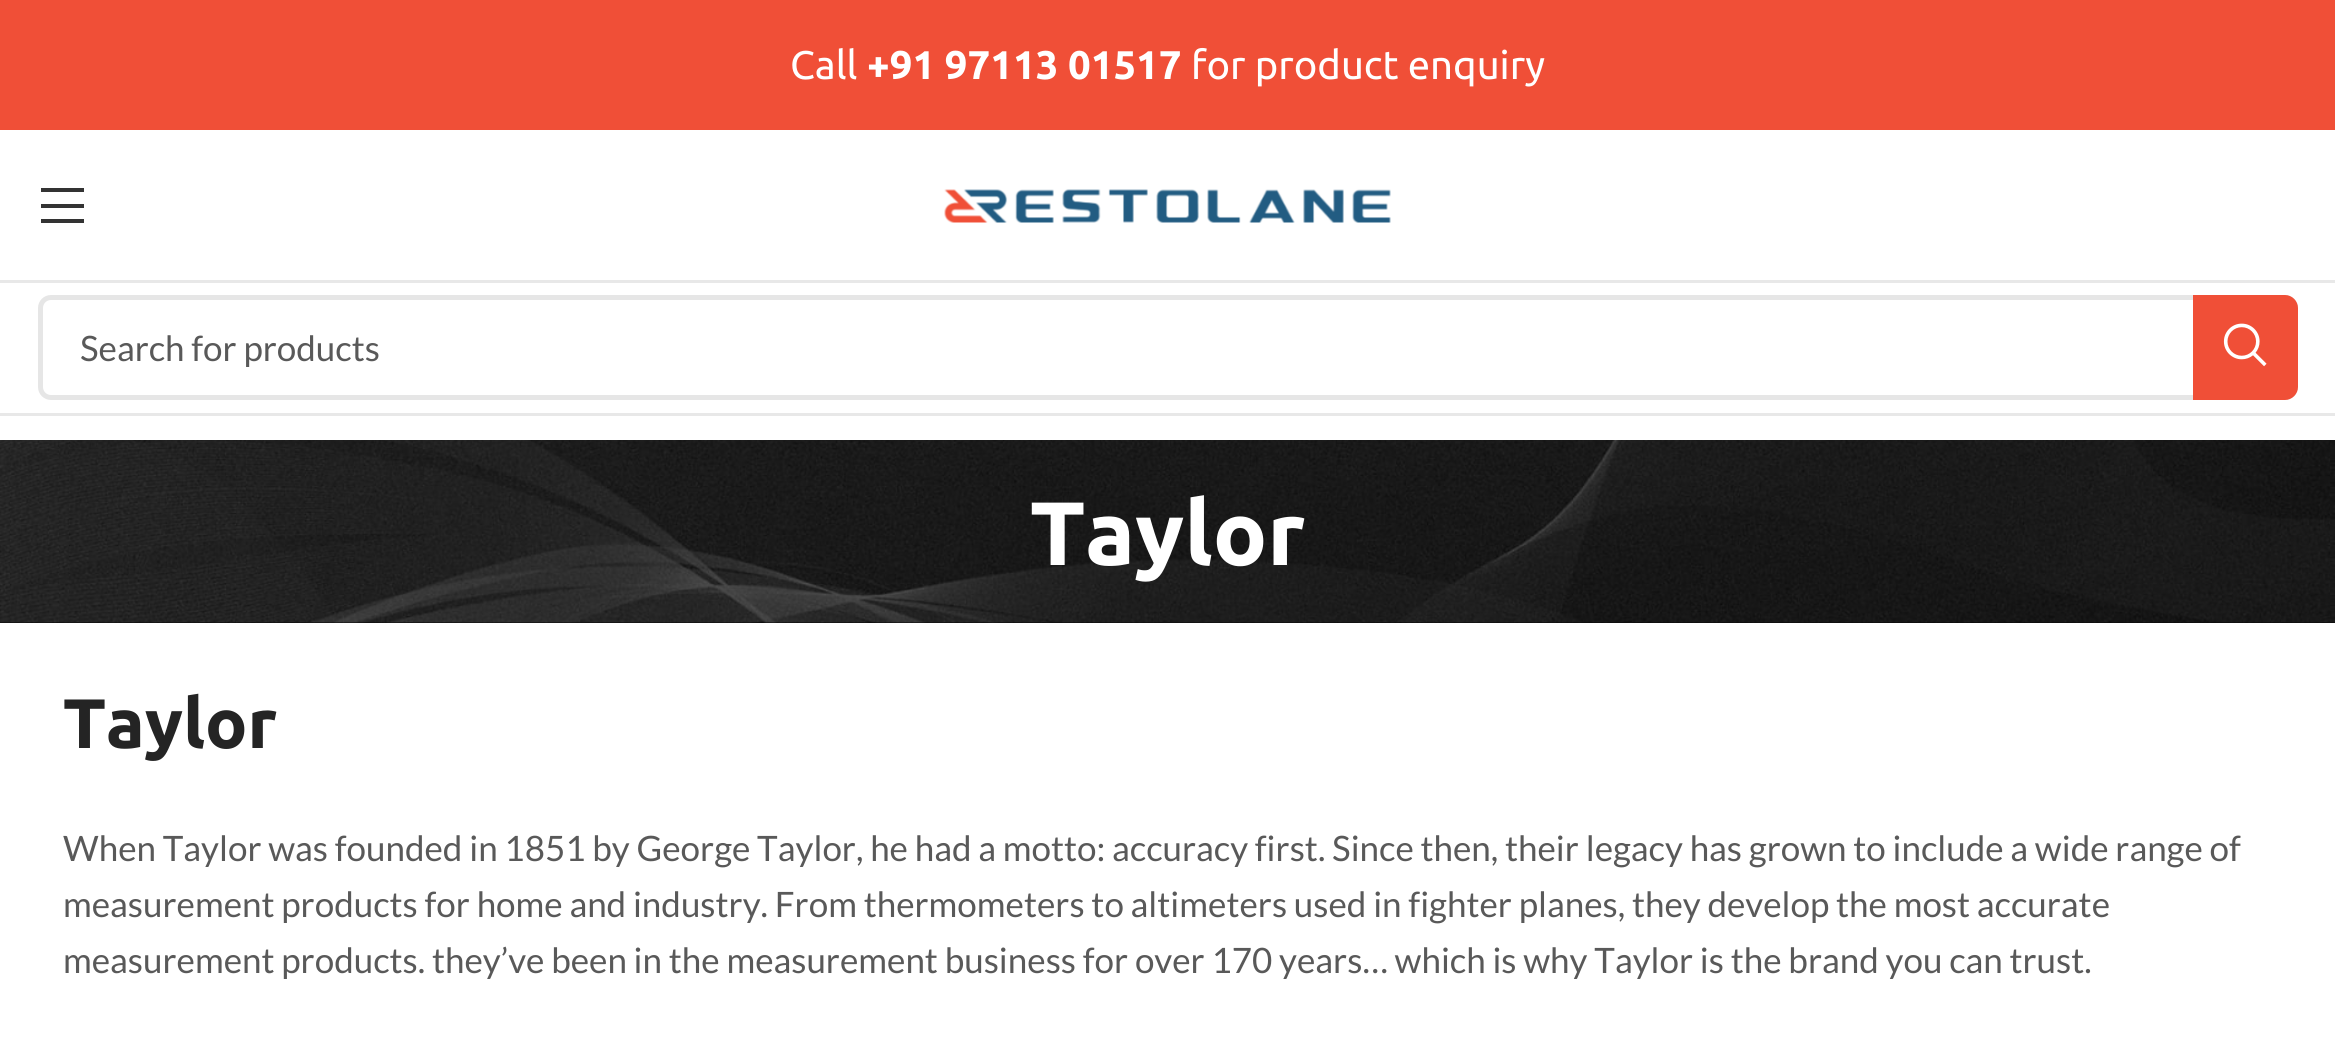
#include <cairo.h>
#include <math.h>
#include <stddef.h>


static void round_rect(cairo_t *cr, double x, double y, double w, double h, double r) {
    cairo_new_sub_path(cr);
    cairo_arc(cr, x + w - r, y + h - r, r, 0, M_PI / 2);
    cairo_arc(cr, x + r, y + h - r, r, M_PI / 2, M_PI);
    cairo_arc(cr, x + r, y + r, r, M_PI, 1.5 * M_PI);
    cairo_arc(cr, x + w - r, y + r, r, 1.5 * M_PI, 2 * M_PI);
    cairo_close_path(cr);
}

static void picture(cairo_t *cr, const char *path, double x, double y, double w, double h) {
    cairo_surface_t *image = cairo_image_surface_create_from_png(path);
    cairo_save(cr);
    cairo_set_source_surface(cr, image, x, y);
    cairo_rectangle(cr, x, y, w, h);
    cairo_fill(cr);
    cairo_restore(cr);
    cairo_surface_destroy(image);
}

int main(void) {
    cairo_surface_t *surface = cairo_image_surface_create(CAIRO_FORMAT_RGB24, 2335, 1048);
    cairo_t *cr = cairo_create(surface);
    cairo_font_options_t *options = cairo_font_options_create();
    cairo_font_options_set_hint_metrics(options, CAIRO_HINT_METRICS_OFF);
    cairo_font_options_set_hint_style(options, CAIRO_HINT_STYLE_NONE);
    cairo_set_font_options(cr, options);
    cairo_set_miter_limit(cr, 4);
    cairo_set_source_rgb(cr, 1, 1, 1);
    cairo_paint(cr);
    cairo_set_source_rgb(cr, 0.941, 0.31, 0.216);
    cairo_rectangle(cr, 0, 0, 2335, 130);
    cairo_fill(cr);
    cairo_select_font_face(cr, "Ubuntu", CAIRO_FONT_SLANT_NORMAL, CAIRO_FONT_WEIGHT_NORMAL);
    cairo_set_font_size(cr, 40);
    cairo_set_source_rgb(cr, 1, 1, 1);
    cairo_move_to(cr, 790, 79);
    cairo_show_text(cr, "Call");
    cairo_select_font_face(cr, "Ubuntu", CAIRO_FONT_SLANT_NORMAL, CAIRO_FONT_WEIGHT_BOLD);
    cairo_move_to(cr, 867, 79);
    cairo_show_text(cr, "+91 97113 01517");
    cairo_select_font_face(cr, "Ubuntu", CAIRO_FONT_SLANT_NORMAL, CAIRO_FONT_WEIGHT_NORMAL);
    cairo_move_to(cr, 1191, 79);
    cairo_show_text(cr, "for product enquiry");
    cairo_set_source_rgb(cr, 0.91, 0.91, 0.91);
    cairo_rectangle(cr, 0, 280, 2335, 3);
    cairo_fill(cr);
    cairo_set_source_rgb(cr, 0.2, 0.2, 0.2);
    cairo_new_path(cr);
    cairo_move_to(cr, 41, 192);
    cairo_line_to(cr, 84, 192);
    cairo_line_to(cr, 84, 188);
    cairo_line_to(cr, 41, 188);
    cairo_close_path(cr);
    cairo_move_to(cr, 41, 208);
    cairo_line_to(cr, 84, 208);
    cairo_line_to(cr, 84, 204);
    cairo_line_to(cr, 41, 204);
    cairo_close_path(cr);
    cairo_move_to(cr, 41, 223);
    cairo_line_to(cr, 84, 223);
    cairo_line_to(cr, 84, 219);
    cairo_line_to(cr, 41, 219);
    cairo_close_path(cr);
    cairo_fill(cr);
    picture(cr, "img1.png", 944, 189, 447, 34);
    cairo_set_source_rgb(cr, 0.91, 0.91, 0.91);
    cairo_rectangle(cr, 0, 413, 2335, 3);
    cairo_fill(cr);
    round_rect(cr, 40.5, 297.5, 2255, 100, 10.5);
    cairo_set_source_rgb(cr, 0.902, 0.902, 0.902);
    cairo_set_line_width(cr, 5);
    cairo_stroke(cr);
    cairo_select_font_face(cr, "Lato", CAIRO_FONT_SLANT_NORMAL, CAIRO_FONT_WEIGHT_NORMAL);
    cairo_set_font_size(cr, 35);
    cairo_set_source_rgb(cr, 0.349, 0.349, 0.349);
    cairo_move_to(cr, 80, 361);
    cairo_show_text(cr, "Search for products");
    cairo_set_source_rgb(cr, 0.941, 0.31, 0.216);
    cairo_new_path(cr);
    cairo_move_to(cr, 2193, 295);
    cairo_line_to(cr, 2285, 295);
    cairo_curve_to(cr, 2292, 295, 2298, 301, 2298, 308);
    cairo_line_to(cr, 2298, 387);
    cairo_curve_to(cr, 2298, 394, 2292, 400, 2285, 400);
    cairo_line_to(cr, 2193, 400);
    cairo_close_path(cr);
    cairo_fill(cr);
    picture(cr, "img2.png", 2223, 323, 44, 44);
    cairo_set_source_rgb(cr, 0.039, 0.039, 0.039);
    cairo_rectangle(cr, 0, 622, 2335, 1);
    cairo_fill(cr);
    picture(cr, "img3.png", 0, 440, 2335, 183);
    cairo_select_font_face(cr, "Ubuntu", CAIRO_FONT_SLANT_NORMAL, CAIRO_FONT_WEIGHT_BOLD);
    cairo_set_font_size(cr, 90);
    cairo_set_source_rgb(cr, 1, 1, 1);
    cairo_move_to(cr, 1030, 565);
    cairo_show_text(cr, "Taylor");
    cairo_set_font_size(cr, 70);
    cairo_set_source_rgb(cr, 0.141, 0.141, 0.141);
    cairo_move_to(cr, 63, 748);
    cairo_show_text(cr, "Taylor");
    cairo_select_font_face(cr, "Lato", CAIRO_FONT_SLANT_NORMAL, CAIRO_FONT_WEIGHT_NORMAL);
    cairo_set_font_size(cr, 35);
    cairo_set_source_rgb(cr, 0.349, 0.349, 0.349);
    cairo_move_to(cr, 63, 861);
    cairo_show_text(cr, "When Taylor was founded in 1851 by George Taylor, he had a motto: accuracy first. Since then, their legacy has grown to include a wide range of");
    cairo_move_to(cr, 63, 917);
    cairo_show_text(cr, "measurement products for home and industry. From thermometers to altimeters used in fighter planes, they develop the most accurate");
    cairo_move_to(cr, 63, 973);
    cairo_show_text(cr, "measurement products. they’ve been in the measurement business for over 170 years… which is why Taylor is the brand you can trust.");
    cairo_surface_write_to_png(surface, "page.png");
    cairo_font_options_destroy(options);
    cairo_destroy(cr);
    cairo_surface_destroy(surface);
    return 0;
}
